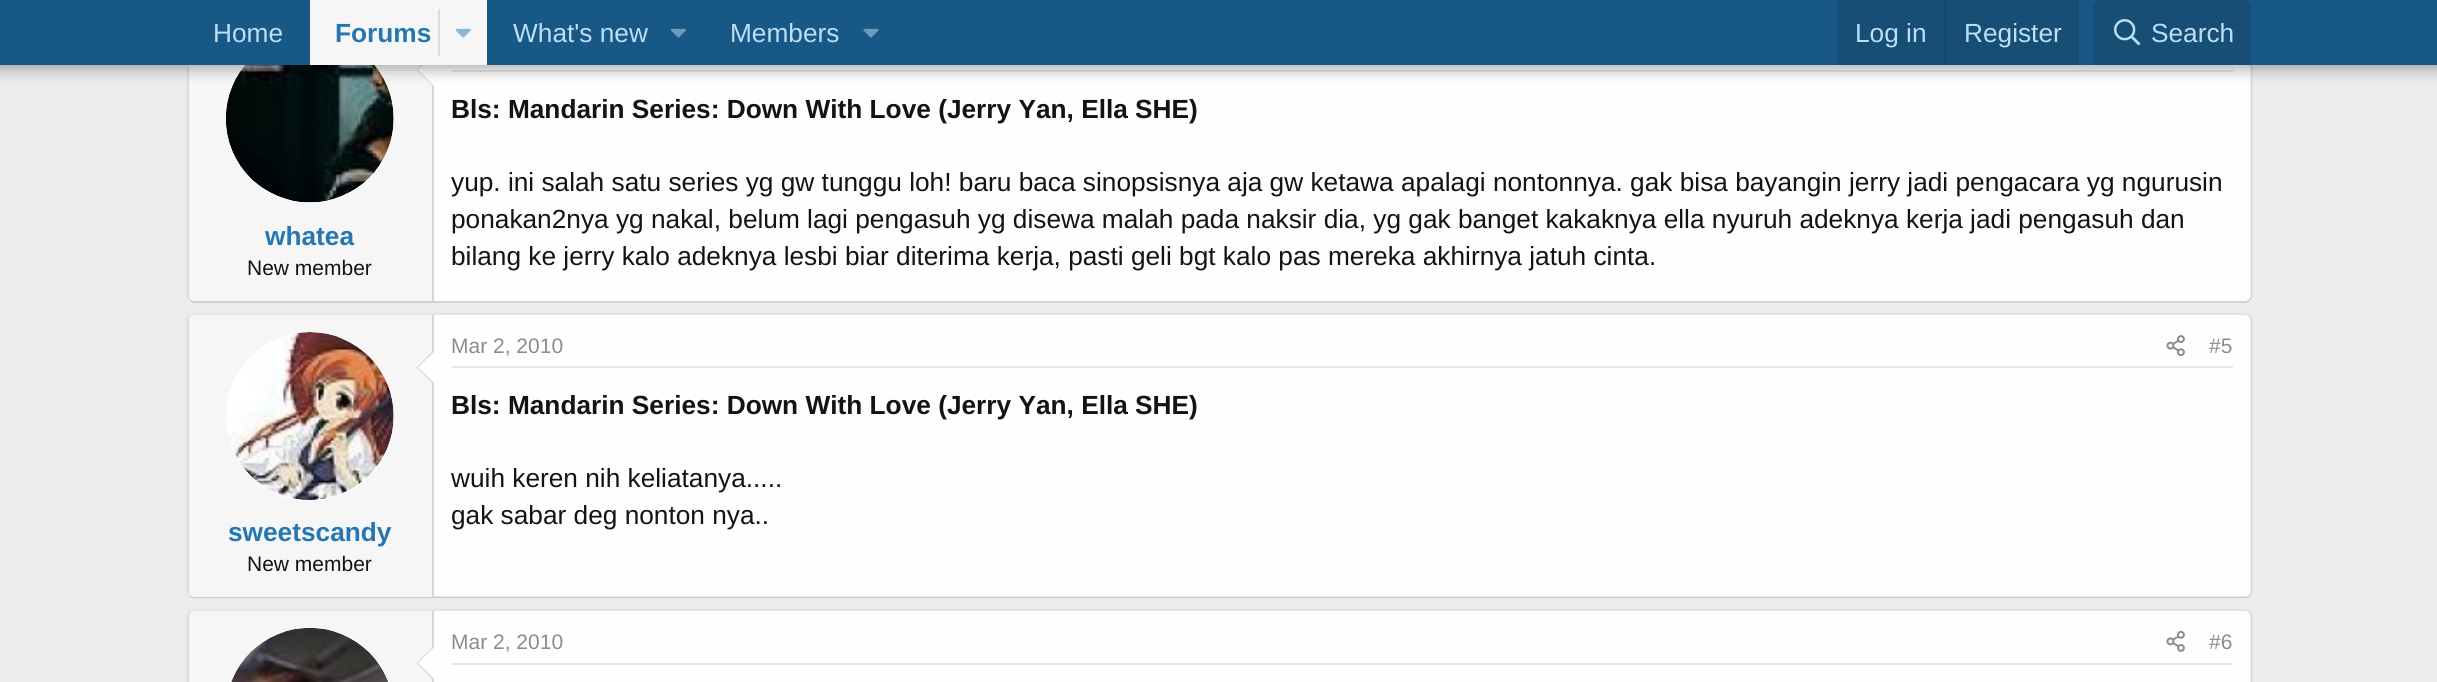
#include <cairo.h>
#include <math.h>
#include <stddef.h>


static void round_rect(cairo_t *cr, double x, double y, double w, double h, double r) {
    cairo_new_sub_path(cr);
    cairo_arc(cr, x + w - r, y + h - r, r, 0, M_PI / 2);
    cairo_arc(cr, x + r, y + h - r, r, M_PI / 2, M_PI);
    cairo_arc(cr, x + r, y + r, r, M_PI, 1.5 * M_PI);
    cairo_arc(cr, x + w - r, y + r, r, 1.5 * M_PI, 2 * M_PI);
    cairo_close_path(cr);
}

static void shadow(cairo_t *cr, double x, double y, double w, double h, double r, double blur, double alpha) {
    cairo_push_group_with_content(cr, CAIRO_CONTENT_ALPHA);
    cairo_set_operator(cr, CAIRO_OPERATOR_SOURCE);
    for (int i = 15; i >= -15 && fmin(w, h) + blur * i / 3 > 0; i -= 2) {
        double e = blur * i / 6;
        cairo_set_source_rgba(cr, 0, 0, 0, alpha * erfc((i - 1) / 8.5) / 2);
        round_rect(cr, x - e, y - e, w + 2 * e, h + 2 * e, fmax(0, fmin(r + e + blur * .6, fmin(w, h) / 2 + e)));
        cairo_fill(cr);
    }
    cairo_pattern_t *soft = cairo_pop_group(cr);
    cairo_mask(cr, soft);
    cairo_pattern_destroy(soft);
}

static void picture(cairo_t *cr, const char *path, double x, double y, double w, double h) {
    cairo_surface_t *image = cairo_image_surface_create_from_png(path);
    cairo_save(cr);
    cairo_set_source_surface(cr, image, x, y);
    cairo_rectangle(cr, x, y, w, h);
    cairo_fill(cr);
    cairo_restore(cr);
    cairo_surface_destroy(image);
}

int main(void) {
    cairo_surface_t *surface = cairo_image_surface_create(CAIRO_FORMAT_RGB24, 2437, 682);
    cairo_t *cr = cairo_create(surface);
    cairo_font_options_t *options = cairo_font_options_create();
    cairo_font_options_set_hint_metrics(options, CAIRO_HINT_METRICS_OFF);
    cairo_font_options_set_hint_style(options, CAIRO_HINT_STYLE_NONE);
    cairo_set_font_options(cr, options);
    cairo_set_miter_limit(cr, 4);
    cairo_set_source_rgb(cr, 0.925, 0.925, 0.925);
    cairo_paint(cr);
    cairo_set_source_rgb(cr, 0.996, 0.996, 0.996);
    round_rect(cr, 187, 16, 2065, 287, 7);
    cairo_fill(cr);
    cairo_new_path(cr);
    cairo_move_to(cr, 2249.5, 18.5);
    cairo_curve_to(cr, 2250.5, 19.5, 2251.5, 21, 2251.5, 23);
    cairo_line_to(cr, 2251.5, 296);
    cairo_curve_to(cr, 2251.5, 297.5, 2250.5, 299, 2249.5, 300);
    cairo_set_source_rgb(cr, 0.847, 0.847, 0.847);
    cairo_set_line_width(cr, 1.8);
    cairo_stroke(cr);
    cairo_new_path(cr);
    cairo_move_to(cr, 2249.5, 300);
    cairo_curve_to(cr, 2248.5, 301, 2247, 302, 2245, 302);
    cairo_line_to(cr, 194, 302);
    cairo_curve_to(cr, 192.5, 302, 191, 301, 190, 300);
    cairo_set_source_rgb(cr, 0.796, 0.796, 0.796);
    cairo_stroke(cr);
    cairo_new_path(cr);
    cairo_move_to(cr, 190, 300);
    cairo_curve_to(cr, 189, 299, 188, 297.5, 188, 296);
    cairo_line_to(cr, 188, 23);
    cairo_curve_to(cr, 188, 21, 189, 19.5, 190, 18.5);
    cairo_set_source_rgb(cr, 0.847, 0.847, 0.847);
    cairo_stroke(cr);
    cairo_set_source_rgb(cr, 0.961, 0.961, 0.961);
    cairo_new_path(cr);
    cairo_move_to(cr, 194, 18);
    cairo_line_to(cr, 434, 18);
    cairo_line_to(cr, 434, 301);
    cairo_line_to(cr, 194, 301);
    cairo_curve_to(cr, 191, 301, 189, 299, 189, 296);
    cairo_line_to(cr, 189, 23);
    cairo_curve_to(cr, 189, 20, 191, 18, 194, 18);
    cairo_close_path(cr);
    cairo_fill(cr);
    cairo_set_source_rgb(cr, 0.847, 0.847, 0.847);
    cairo_rectangle(cr, 432, 85, 2, 216);
    cairo_fill(cr);
    cairo_set_source_rgb(cr, 0.996, 0.996, 0.996);
    cairo_arc(cr, 310, 119, 84, 0, 2 * M_PI);
    cairo_fill(cr);
    picture(cr, "img5.png", 226, 65, 168, 138);
    cairo_set_source_rgb(cr, 0.847, 0.847, 0.847);
    cairo_new_path(cr);
    cairo_move_to(cr, 434, 52.5);
    cairo_line_to(cr, 434, 87.5);
    cairo_line_to(cr, 416.5, 70);
    cairo_close_path(cr);
    cairo_fill(cr);
    cairo_set_source_rgb(cr, 0.996, 0.996, 0.996);
    cairo_new_path(cr);
    cairo_move_to(cr, 434, 54);
    cairo_line_to(cr, 434, 86);
    cairo_line_to(cr, 418, 70);
    cairo_close_path(cr);
    cairo_fill(cr);
    cairo_set_source_rgb(cr, 0.906, 0.906, 0.906);
    cairo_rectangle(cr, 452, 70, 1781, 2);
    cairo_fill(cr);
    cairo_set_source_rgb(cr, 0, 0, 0);
    shadow(cr, -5, -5, 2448, 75, 0, 7, 0.3);
    cairo_set_source_rgb(cr, 0.094, 0.345, 0.525);
    cairo_rectangle(cr, 0, 0, 2437, 65);
    cairo_fill(cr);
    cairo_select_font_face(cr, "Liberation Sans", CAIRO_FONT_SLANT_NORMAL, CAIRO_FONT_WEIGHT_NORMAL);
    cairo_set_font_size(cr, 26.25);
    cairo_set_source_rgb(cr, 0.737, 0.871, 0.961);
    cairo_move_to(cr, 213, 42);
    cairo_show_text(cr, "Home");
    cairo_set_source_rgb(cr, 0.961, 0.961, 0.961);
    cairo_rectangle(cr, 310, 0, 177, 65);
    cairo_fill(cr);
    cairo_select_font_face(cr, "Liberation Sans", CAIRO_FONT_SLANT_NORMAL, CAIRO_FONT_WEIGHT_BOLD);
    cairo_set_source_rgb(cr, 0.145, 0.467, 0.694);
    cairo_move_to(cr, 335, 42);
    cairo_show_text(cr, "Forums");
    cairo_set_source_rgb(cr, 0.82, 0.875, 0.914);
    cairo_rectangle(cr, 438, 9, 2, 47);
    cairo_fill(cr);
    picture(cr, "img1.png", 455, 28, 16, 10);
    cairo_select_font_face(cr, "Liberation Sans", CAIRO_FONT_SLANT_NORMAL, CAIRO_FONT_WEIGHT_NORMAL);
    cairo_set_source_rgb(cr, 0.737, 0.871, 0.961);
    cairo_move_to(cr, 513, 42);
    cairo_show_text(cr, "What's new");
    picture(cr, "img2.png", 670, 28, 16, 10);
    cairo_move_to(cr, 730, 42);
    cairo_show_text(cr, "Members");
    picture(cr, "img3.png", 863, 28, 16, 10);
    cairo_set_source_rgb(cr, 0.09, 0.306, 0.459);
    cairo_rectangle(cr, 1838, 0, 241, 65);
    cairo_fill(cr);
    cairo_set_source_rgb(cr, 0.737, 0.871, 0.961);
    cairo_move_to(cr, 1855, 42);
    cairo_show_text(cr, "Log in");
    cairo_set_source_rgb(cr, 0.09, 0.271, 0.4);
    cairo_rectangle(cr, 1944, 0, 2, 65);
    cairo_fill(cr);
    cairo_set_source_rgb(cr, 0.737, 0.871, 0.961);
    cairo_move_to(cr, 1964, 42);
    cairo_show_text(cr, "Register");
    cairo_set_source_rgb(cr, 0.09, 0.306, 0.459);
    cairo_new_path(cr);
    cairo_move_to(cr, 2100, 0);
    cairo_line_to(cr, 2244, 0);
    cairo_curve_to(cr, 2248, 0, 2251, 3, 2251, 7);
    cairo_line_to(cr, 2251, 65);
    cairo_line_to(cr, 2093, 65);
    cairo_line_to(cr, 2093, 7);
    cairo_curve_to(cr, 2093, 3, 2096, 0, 2100, 0);
    cairo_close_path(cr);
    cairo_fill(cr);
    picture(cr, "img4.png", 2114, 19, 27, 27);
    cairo_set_source_rgb(cr, 0.737, 0.871, 0.961);
    cairo_move_to(cr, 2151, 42);
    cairo_show_text(cr, "Search");
    cairo_select_font_face(cr, "Liberation Sans", CAIRO_FONT_SLANT_NORMAL, CAIRO_FONT_WEIGHT_BOLD);
    cairo_set_source_rgb(cr, 0.145, 0.467, 0.694);
    cairo_move_to(cr, 265, 245);
    cairo_show_text(cr, "whatea");
    cairo_select_font_face(cr, "Liberation Sans", CAIRO_FONT_SLANT_NORMAL, CAIRO_FONT_WEIGHT_NORMAL);
    cairo_set_font_size(cr, 21);
    cairo_set_source_rgb(cr, 0.078, 0.078, 0.078);
    cairo_move_to(cr, 247, 275);
    cairo_show_text(cr, "New member");
    cairo_select_font_face(cr, "Liberation Sans", CAIRO_FONT_SLANT_NORMAL, CAIRO_FONT_WEIGHT_BOLD);
    cairo_set_font_size(cr, 26.25);
    cairo_move_to(cr, 451, 118);
    cairo_show_text(cr, "Bls: Mandarin Series: Down With Love (Jerry Yan, Ella SHE)");
    cairo_select_font_face(cr, "Liberation Sans", CAIRO_FONT_SLANT_NORMAL, CAIRO_FONT_WEIGHT_NORMAL);
    cairo_move_to(cr, 451, 191);
    cairo_show_text(cr, "yup. ini salah satu series yg gw tunggu loh! baru baca sinopsisnya aja gw ketawa apalagi nontonnya. gak bisa bayangin jerry jadi pengacara yg ngurusin");
    cairo_move_to(cr, 451, 228);
    cairo_show_text(cr, "ponakan2nya yg nakal, belum lagi pengasuh yg disewa malah pada naksir dia, yg gak banget kakaknya ella nyuruh adeknya kerja jadi pengasuh dan");
    cairo_move_to(cr, 451, 265);
    cairo_show_text(cr, "bilang ke jerry kalo adeknya lesbi biar diterima kerja, pasti geli bgt kalo pas mereka akhirnya jatuh cinta.");
    cairo_set_source_rgb(cr, 0.996, 0.996, 0.996);
    round_rect(cr, 187, 313, 2065, 286, 7);
    cairo_fill(cr);
    cairo_new_path(cr);
    cairo_move_to(cr, 190, 316);
    cairo_curve_to(cr, 191, 315, 192.5, 314, 194, 314);
    cairo_line_to(cr, 2245, 314);
    cairo_curve_to(cr, 2247, 314, 2248.5, 315, 2249.5, 316);
    cairo_set_source_rgb(cr, 0.875, 0.875, 0.875);
    cairo_stroke(cr);
    cairo_new_path(cr);
    cairo_move_to(cr, 2249.5, 316);
    cairo_curve_to(cr, 2250.5, 317, 2251.5, 318.5, 2251.5, 320);
    cairo_line_to(cr, 2251.5, 591.5);
    cairo_curve_to(cr, 2251.5, 593, 2250.5, 594.5, 2249.5, 596);
    cairo_set_source_rgb(cr, 0.847, 0.847, 0.847);
    cairo_stroke(cr);
    cairo_new_path(cr);
    cairo_move_to(cr, 2249.5, 596);
    cairo_curve_to(cr, 2248.5, 597, 2247, 597.5, 2245, 597.5);
    cairo_line_to(cr, 194, 597.5);
    cairo_curve_to(cr, 192.5, 597.5, 191, 597, 190, 596);
    cairo_set_source_rgb(cr, 0.796, 0.796, 0.796);
    cairo_stroke(cr);
    cairo_new_path(cr);
    cairo_move_to(cr, 190, 596);
    cairo_curve_to(cr, 189, 594.5, 188, 593, 188, 591.5);
    cairo_line_to(cr, 188, 320);
    cairo_curve_to(cr, 188, 318.5, 189, 317, 190, 316);
    cairo_set_source_rgb(cr, 0.847, 0.847, 0.847);
    cairo_stroke(cr);
    cairo_set_source_rgb(cr, 0.906, 0.906, 0.906);
    cairo_rectangle(cr, 452, 366, 1781, 2);
    cairo_fill(cr);
    cairo_set_font_size(cr, 21);
    cairo_set_source_rgb(cr, 0.549, 0.549, 0.549);
    cairo_move_to(cr, 451, 353);
    cairo_show_text(cr, "Mar 2, 2010");
    picture(cr, "img6.png", 2166, 335, 19, 22);
    cairo_move_to(cr, 2209, 353);
    cairo_show_text(cr, "#5");
    cairo_select_font_face(cr, "Liberation Sans", CAIRO_FONT_SLANT_NORMAL, CAIRO_FONT_WEIGHT_BOLD);
    cairo_set_font_size(cr, 26.25);
    cairo_set_source_rgb(cr, 0.078, 0.078, 0.078);
    cairo_move_to(cr, 451, 414);
    cairo_show_text(cr, "Bls: Mandarin Series: Down With Love (Jerry Yan, Ella SHE)");
    cairo_select_font_face(cr, "Liberation Sans", CAIRO_FONT_SLANT_NORMAL, CAIRO_FONT_WEIGHT_NORMAL);
    cairo_move_to(cr, 451, 487);
    cairo_show_text(cr, "wuih keren nih keliatanya.....");
    cairo_move_to(cr, 451, 524);
    cairo_show_text(cr, "gak sabar deg nonton nya..");
    cairo_set_source_rgb(cr, 0.961, 0.961, 0.961);
    cairo_new_path(cr);
    cairo_move_to(cr, 194, 315);
    cairo_line_to(cr, 434, 315);
    cairo_line_to(cr, 434, 597);
    cairo_line_to(cr, 194, 597);
    cairo_curve_to(cr, 191, 597, 189, 595, 189, 592);
    cairo_line_to(cr, 189, 320);
    cairo_curve_to(cr, 189, 317, 191, 315, 194, 315);
    cairo_close_path(cr);
    cairo_fill(cr);
    cairo_set_source_rgb(cr, 0.847, 0.847, 0.847);
    cairo_rectangle(cr, 432, 315, 2, 282);
    cairo_fill(cr);
    cairo_set_source_rgb(cr, 0.996, 0.996, 0.996);
    cairo_arc(cr, 310, 417, 84, 0, 2 * M_PI);
    cairo_fill(cr);
    picture(cr, "img7.png", 227, 332, 167, 168);
    cairo_set_source_rgb(cr, 0.847, 0.847, 0.847);
    cairo_new_path(cr);
    cairo_move_to(cr, 434, 350);
    cairo_line_to(cr, 434, 385);
    cairo_line_to(cr, 416.5, 367.5);
    cairo_close_path(cr);
    cairo_fill(cr);
    cairo_set_source_rgb(cr, 0.996, 0.996, 0.996);
    cairo_new_path(cr);
    cairo_move_to(cr, 434, 352);
    cairo_line_to(cr, 434, 383);
    cairo_line_to(cr, 418, 367.5);
    cairo_close_path(cr);
    cairo_fill(cr);
    cairo_select_font_face(cr, "Liberation Sans", CAIRO_FONT_SLANT_NORMAL, CAIRO_FONT_WEIGHT_BOLD);
    cairo_set_source_rgb(cr, 0.145, 0.467, 0.694);
    cairo_move_to(cr, 228, 541);
    cairo_show_text(cr, "sweetscandy");
    cairo_select_font_face(cr, "Liberation Sans", CAIRO_FONT_SLANT_NORMAL, CAIRO_FONT_WEIGHT_NORMAL);
    cairo_set_font_size(cr, 21);
    cairo_set_source_rgb(cr, 0.078, 0.078, 0.078);
    cairo_move_to(cr, 247, 571);
    cairo_show_text(cr, "New member");
    cairo_set_source_rgb(cr, 0.996, 0.996, 0.996);
    round_rect(cr, 187, 609, 2065, 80, 7);
    cairo_fill(cr);
    cairo_new_path(cr);
    cairo_move_to(cr, 190, 611.5);
    cairo_curve_to(cr, 191, 610.5, 192.5, 610, 194, 610);
    cairo_line_to(cr, 2245, 610);
    cairo_curve_to(cr, 2247, 610, 2248.5, 610.5, 2249.5, 611.5);
    cairo_set_source_rgb(cr, 0.875, 0.875, 0.875);
    cairo_stroke(cr);
    cairo_new_path(cr);
    cairo_move_to(cr, 2249.5, 611.5);
    cairo_curve_to(cr, 2250.5, 613, 2251.5, 614.5, 2251.5, 616);
    cairo_line_to(cr, 2251.5, 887);
    cairo_curve_to(cr, 2251.5, 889, 2250.5, 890.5, 2249.5, 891.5);
    cairo_set_source_rgb(cr, 0.847, 0.847, 0.847);
    cairo_stroke(cr);
    cairo_new_path(cr);
    cairo_move_to(cr, 190, 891.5);
    cairo_curve_to(cr, 189, 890.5, 188, 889, 188, 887);
    cairo_line_to(cr, 188, 616);
    cairo_curve_to(cr, 188, 614.5, 189, 613, 190, 611.5);
    cairo_stroke(cr);
    cairo_set_source_rgb(cr, 0.961, 0.961, 0.961);
    cairo_new_path(cr);
    cairo_move_to(cr, 194, 611);
    cairo_line_to(cr, 434, 611);
    cairo_line_to(cr, 434, 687);
    cairo_line_to(cr, 194, 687);
    cairo_curve_to(cr, 191, 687, 189, 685, 189, 682);
    cairo_line_to(cr, 189, 616);
    cairo_curve_to(cr, 189, 613, 191, 611, 194, 611);
    cairo_close_path(cr);
    cairo_fill(cr);
    cairo_set_source_rgb(cr, 0.847, 0.847, 0.847);
    cairo_rectangle(cr, 432, 611, 2, 71);
    cairo_fill(cr);
    cairo_set_source_rgb(cr, 0.996, 0.996, 0.996);
    round_rect(cr, 226, 628, 168, 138, 84);
    cairo_fill(cr);
    picture(cr, "img8.png", 231, 628, 157, 54);
    cairo_set_source_rgb(cr, 0.847, 0.847, 0.847);
    cairo_new_path(cr);
    cairo_move_to(cr, 434, 646);
    cairo_line_to(cr, 434, 681);
    cairo_line_to(cr, 416.5, 663);
    cairo_close_path(cr);
    cairo_fill(cr);
    cairo_set_source_rgb(cr, 0.996, 0.996, 0.996);
    cairo_new_path(cr);
    cairo_move_to(cr, 434, 647.5);
    cairo_line_to(cr, 434, 679);
    cairo_line_to(cr, 418, 663);
    cairo_close_path(cr);
    cairo_fill(cr);
    cairo_set_source_rgb(cr, 0.906, 0.906, 0.906);
    cairo_rectangle(cr, 452, 663, 1781, 2);
    cairo_fill(cr);
    cairo_set_source_rgb(cr, 0.549, 0.549, 0.549);
    cairo_move_to(cr, 451, 649);
    cairo_show_text(cr, "Mar 2, 2010");
    picture(cr, "img9.png", 2166, 630, 19, 22);
    cairo_move_to(cr, 2209, 649);
    cairo_show_text(cr, "#6");
    cairo_surface_write_to_png(surface, "page.png");
    cairo_font_options_destroy(options);
    cairo_destroy(cr);
    cairo_surface_destroy(surface);
    return 0;
}
